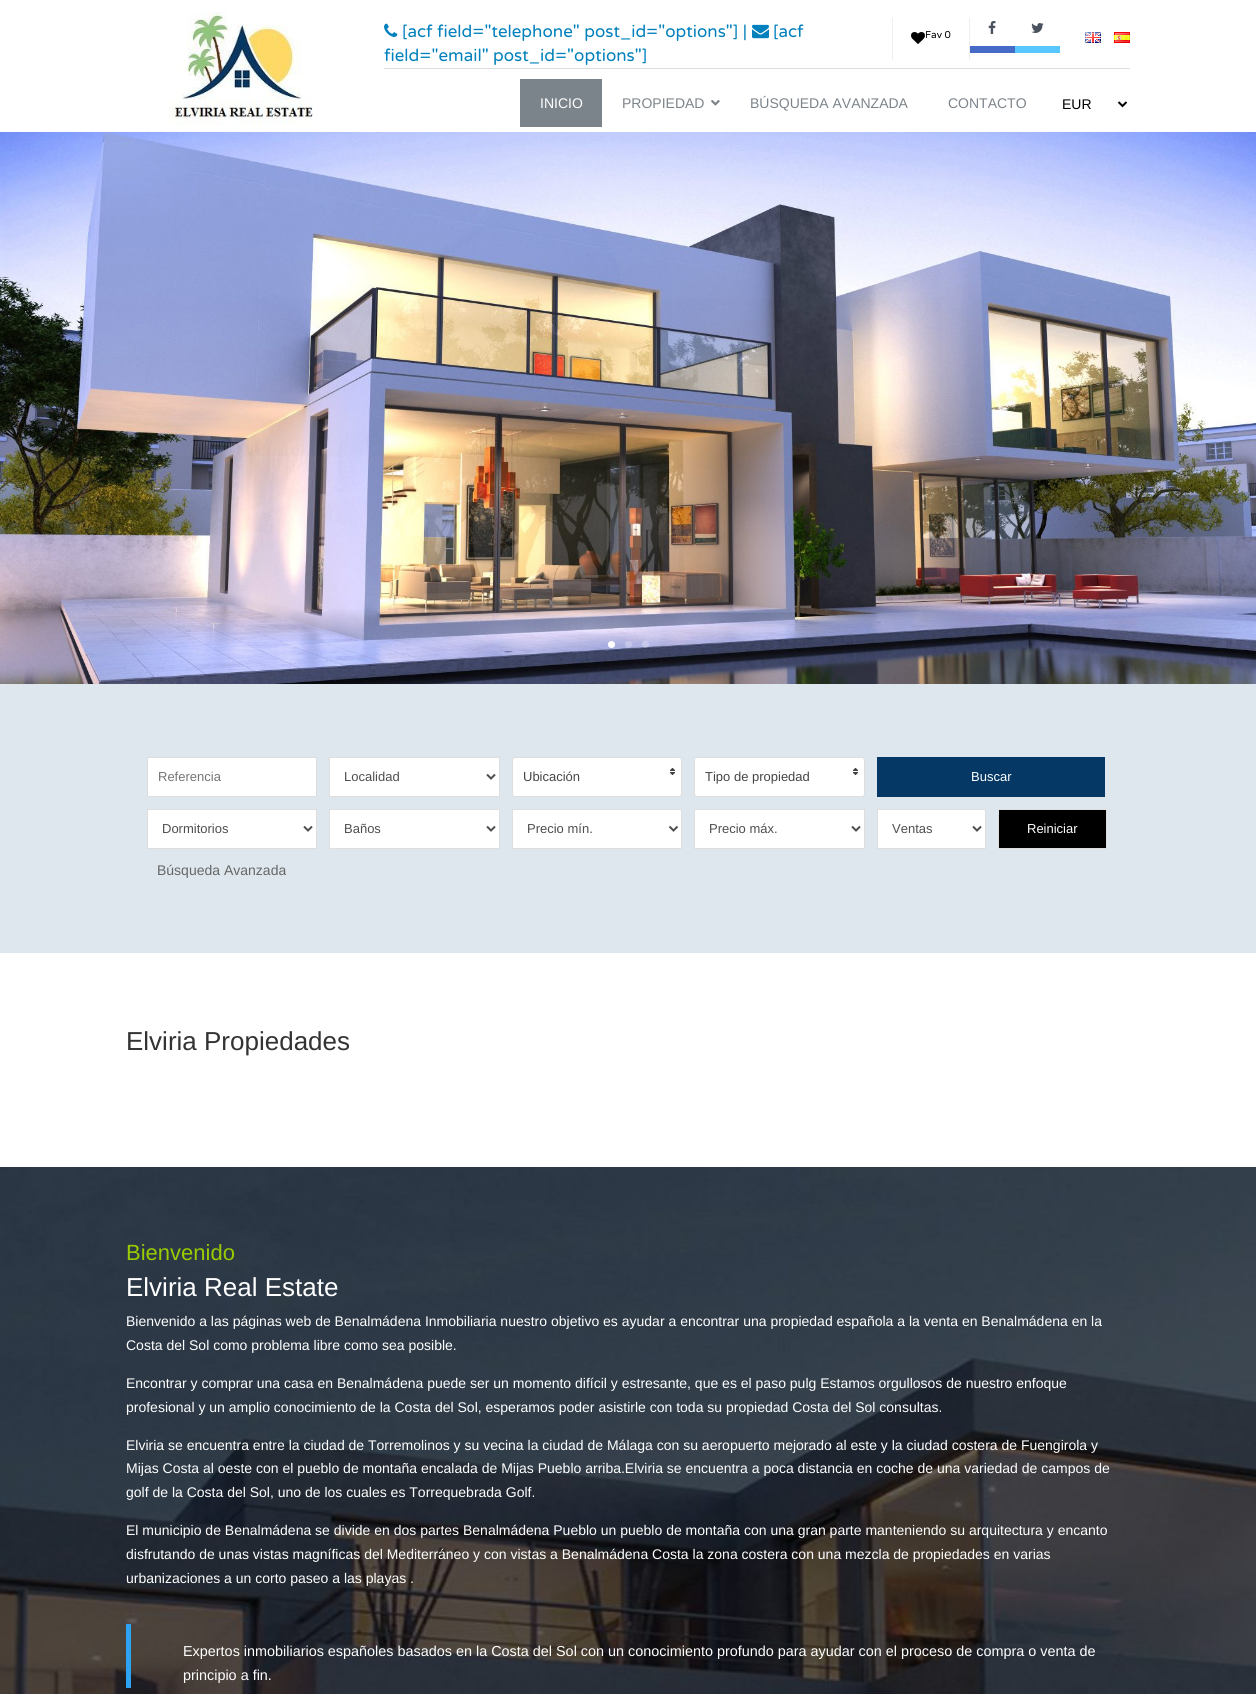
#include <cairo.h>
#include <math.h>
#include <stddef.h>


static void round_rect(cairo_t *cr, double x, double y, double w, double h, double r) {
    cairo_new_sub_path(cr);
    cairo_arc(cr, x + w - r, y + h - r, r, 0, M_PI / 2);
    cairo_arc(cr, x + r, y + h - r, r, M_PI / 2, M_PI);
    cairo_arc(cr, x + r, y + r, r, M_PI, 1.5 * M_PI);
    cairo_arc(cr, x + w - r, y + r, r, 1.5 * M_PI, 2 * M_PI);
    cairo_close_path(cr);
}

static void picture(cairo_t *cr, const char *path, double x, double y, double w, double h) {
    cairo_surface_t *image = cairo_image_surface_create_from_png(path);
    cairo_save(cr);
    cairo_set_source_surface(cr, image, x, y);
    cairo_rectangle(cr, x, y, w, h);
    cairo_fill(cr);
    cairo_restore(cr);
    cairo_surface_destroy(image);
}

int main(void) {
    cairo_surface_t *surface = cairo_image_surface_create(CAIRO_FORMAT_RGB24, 1256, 1694);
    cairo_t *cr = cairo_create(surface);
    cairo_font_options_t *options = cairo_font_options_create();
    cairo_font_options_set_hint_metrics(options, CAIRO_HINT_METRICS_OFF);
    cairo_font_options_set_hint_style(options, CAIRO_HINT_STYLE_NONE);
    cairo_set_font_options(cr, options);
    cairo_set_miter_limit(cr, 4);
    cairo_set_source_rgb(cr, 1, 1, 1);
    cairo_paint(cr);
    picture(cr, "img1.png", 169, 12, 144, 113);
    cairo_set_source_rgb(cr, 0.867, 0.867, 0.867);
    cairo_rectangle(cr, 384, 68, 746, 1);
    cairo_fill(cr);
    picture(cr, "img2.png", 384, 23, 14, 14);
    cairo_select_font_face(cr, "Varela Round", CAIRO_FONT_SLANT_NORMAL, CAIRO_FONT_WEIGHT_NORMAL);
    cairo_set_font_size(cr, 17);
    cairo_set_source_rgb(cr, 0, 0.502, 0.737);
    cairo_move_to(cr, 402, 37);
    cairo_show_text(cr, "[acf field=\"telephone\" post_id=\"options\"] |");
    picture(cr, "img3.png", 752, 24, 17, 15);
    cairo_move_to(cr, 773, 37);
    cairo_show_text(cr, "[acf");
    cairo_move_to(cr, 384, 61);
    cairo_show_text(cr, "field=\"email\" post_id=\"options\"]");
    cairo_set_source_rgb(cr, 0.933, 0.933, 0.933);
    cairo_rectangle(cr, 969, 18, 1, 42);
    cairo_fill(cr);
    cairo_rectangle(cr, 892, 18, 1, 42);
    cairo_fill(cr);
    picture(cr, "img4.png", 911, 32, 14, 12);
    cairo_set_font_size(cr, 10);
    cairo_set_source_rgb(cr, 0, 0, 0);
    cairo_move_to(cr, 925, 38);
    cairo_show_text(cr, "Fav 0");
    cairo_set_source_rgb(cr, 0.275, 0.42, 0.776);
    cairo_rectangle(cr, 970, 46, 45, 7);
    cairo_fill(cr);
    picture(cr, "img5.png", 988, 21, 8, 13);
    cairo_set_source_rgb(cr, 0.345, 0.78, 1);
    cairo_rectangle(cr, 1015, 46, 45, 7);
    cairo_fill(cr);
    picture(cr, "img6.png", 1031, 23, 13, 10);
    picture(cr, "img7.png", 1085, 32, 16, 11);
    picture(cr, "img8.png", 1114, 32, 16, 11);
    cairo_set_source_rgb(cr, 0.486, 0.518, 0.545);
    cairo_rectangle(cr, 520, 79, 82, 48);
    cairo_fill(cr);
    cairo_select_font_face(cr, "Liberation Sans", CAIRO_FONT_SLANT_NORMAL, CAIRO_FONT_WEIGHT_NORMAL);
    cairo_set_font_size(cr, 14);
    cairo_set_source_rgb(cr, 1, 1, 1);
    cairo_move_to(cr, 540, 108);
    cairo_show_text(cr, "INICIO");
    cairo_set_source_rgb(cr, 0.486, 0.518, 0.545);
    cairo_move_to(cr, 622, 108);
    cairo_show_text(cr, "PROPIEDAD");
    picture(cr, "img9.png", 711, 100, 9, 6);
    cairo_move_to(cr, 750, 108);
    cairo_show_text(cr, "BÚSQUEDA AVANZADA");
    cairo_move_to(cr, 948, 108);
    cairo_show_text(cr, "CONTACTO");
    cairo_new_path(cr);
    cairo_move_to(cr, 1118.5, 102);
    cairo_line_to(cr, 1122.5, 106);
    cairo_line_to(cr, 1126.5, 102);
    cairo_set_source_rgb(cr, 0, 0, 0);
    cairo_stroke(cr);
    cairo_move_to(cr, 1062, 109);
    cairo_show_text(cr, "EUR");
    picture(cr, "img10.png", 0, 132, 1256, 552);
    cairo_set_source_rgb(cr, 1, 1, 1);
    cairo_arc(cr, 611.5, 644.5, 3.5, 0, 2 * M_PI);
    cairo_fill(cr);
    cairo_set_source_rgba(cr, 1, 1, 1, 0.25);
    cairo_arc(cr, 628.5, 644.5, 3.5, 0, 2 * M_PI);
    cairo_fill(cr);
    cairo_arc(cr, 645.5, 644.5, 3.5, 0, 2 * M_PI);
    cairo_fill(cr);
    cairo_set_source_rgb(cr, 0.871, 0.906, 0.933);
    cairo_rectangle(cr, 0, 684, 1256, 269);
    cairo_fill(cr);
    cairo_set_source_rgb(cr, 1, 1, 1);
    cairo_rectangle(cr, 147.5, 757.5, 169, 39);
    cairo_fill_preserve(cr);
    cairo_set_source_rgb(cr, 0.871, 0.871, 0.871);
    cairo_set_line_width(cr, 1);
    cairo_stroke(cr);
    cairo_set_font_size(cr, 13);
    cairo_set_source_rgb(cr, 0.459, 0.459, 0.459);
    cairo_move_to(cr, 158, 781);
    cairo_show_text(cr, "Referencia");
    cairo_set_source_rgb(cr, 1, 1, 1);
    cairo_rectangle(cr, 329.5, 757.5, 170, 39);
    cairo_fill_preserve(cr);
    cairo_set_source_rgb(cr, 0.871, 0.871, 0.871);
    cairo_stroke(cr);
    cairo_new_path(cr);
    cairo_move_to(cr, 487, 774.5);
    cairo_line_to(cr, 491, 778.5);
    cairo_line_to(cr, 495, 774.5);
    cairo_set_source_rgb(cr, 0.306, 0.306, 0.306);
    cairo_set_line_width(cr, 2);
    cairo_stroke(cr);
    cairo_move_to(cr, 344, 781);
    cairo_show_text(cr, "Localidad");
    cairo_set_source_rgb(cr, 1, 1, 1);
    round_rect(cr, 512.5, 757.5, 169, 39, 2.5);
    cairo_fill_preserve(cr);
    cairo_set_source_rgb(cr, 0.871, 0.871, 0.871);
    cairo_set_line_width(cr, 1);
    cairo_stroke(cr);
    cairo_set_source_rgb(cr, 0.271, 0.271, 0.271);
    cairo_move_to(cr, 523, 781);
    cairo_show_text(cr, "Ubicación");
    picture(cr, "img11.png", 670, 768, 5, 7);
    cairo_set_source_rgb(cr, 1, 1, 1);
    round_rect(cr, 694.5, 757.5, 170, 39, 2.5);
    cairo_fill_preserve(cr);
    cairo_set_source_rgb(cr, 0.871, 0.871, 0.871);
    cairo_stroke(cr);
    cairo_set_source_rgb(cr, 0.271, 0.271, 0.271);
    cairo_move_to(cr, 705, 781);
    cairo_show_text(cr, "Tipo de propiedad");
    picture(cr, "img11.png", 853, 768, 5, 7);
    cairo_set_source_rgb(cr, 0.02, 0.22, 0.396);
    cairo_rectangle(cr, 877, 757, 228, 40);
    cairo_fill(cr);
    cairo_set_source_rgb(cr, 1, 1, 1);
    cairo_move_to(cr, 971, 781);
    cairo_show_text(cr, "Buscar");
    cairo_rectangle(cr, 147.5, 809.5, 169, 39);
    cairo_fill_preserve(cr);
    cairo_set_source_rgb(cr, 0.871, 0.871, 0.871);
    cairo_stroke(cr);
    cairo_new_path(cr);
    cairo_move_to(cr, 304, 826.5);
    cairo_line_to(cr, 308, 830.5);
    cairo_line_to(cr, 312, 826.5);
    cairo_set_source_rgb(cr, 0.306, 0.306, 0.306);
    cairo_set_line_width(cr, 2);
    cairo_stroke(cr);
    cairo_move_to(cr, 162, 833);
    cairo_show_text(cr, "Dormitorios");
    cairo_set_source_rgb(cr, 1, 1, 1);
    cairo_rectangle(cr, 329.5, 809.5, 170, 39);
    cairo_fill_preserve(cr);
    cairo_set_source_rgb(cr, 0.871, 0.871, 0.871);
    cairo_set_line_width(cr, 1);
    cairo_stroke(cr);
    cairo_new_path(cr);
    cairo_move_to(cr, 487, 826.5);
    cairo_line_to(cr, 491, 830.5);
    cairo_line_to(cr, 495, 826.5);
    cairo_set_source_rgb(cr, 0.306, 0.306, 0.306);
    cairo_set_line_width(cr, 2);
    cairo_stroke(cr);
    cairo_move_to(cr, 344, 833);
    cairo_show_text(cr, "Baños");
    cairo_set_source_rgb(cr, 1, 1, 1);
    cairo_rectangle(cr, 512.5, 809.5, 169, 39);
    cairo_fill_preserve(cr);
    cairo_set_source_rgb(cr, 0.871, 0.871, 0.871);
    cairo_set_line_width(cr, 1);
    cairo_stroke(cr);
    cairo_new_path(cr);
    cairo_move_to(cr, 669.5, 826.5);
    cairo_line_to(cr, 673.5, 830.5);
    cairo_line_to(cr, 677.5, 826.5);
    cairo_set_source_rgb(cr, 0.306, 0.306, 0.306);
    cairo_set_line_width(cr, 2);
    cairo_stroke(cr);
    cairo_move_to(cr, 527, 833);
    cairo_show_text(cr, "Precio mín.");
    cairo_set_source_rgb(cr, 1, 1, 1);
    cairo_rectangle(cr, 694.5, 809.5, 170, 39);
    cairo_fill_preserve(cr);
    cairo_set_source_rgb(cr, 0.871, 0.871, 0.871);
    cairo_set_line_width(cr, 1);
    cairo_stroke(cr);
    cairo_new_path(cr);
    cairo_move_to(cr, 852, 826.5);
    cairo_line_to(cr, 856, 830.5);
    cairo_line_to(cr, 860, 826.5);
    cairo_set_source_rgb(cr, 0.306, 0.306, 0.306);
    cairo_set_line_width(cr, 2);
    cairo_stroke(cr);
    cairo_move_to(cr, 709, 833);
    cairo_show_text(cr, "Precio máx.");
    cairo_set_source_rgb(cr, 1, 1, 1);
    cairo_rectangle(cr, 877.5, 809.5, 108, 39);
    cairo_fill_preserve(cr);
    cairo_set_source_rgb(cr, 0.871, 0.871, 0.871);
    cairo_set_line_width(cr, 1);
    cairo_stroke(cr);
    cairo_new_path(cr);
    cairo_move_to(cr, 973, 826.5);
    cairo_line_to(cr, 977, 830.5);
    cairo_line_to(cr, 981, 826.5);
    cairo_set_source_rgb(cr, 0.306, 0.306, 0.306);
    cairo_set_line_width(cr, 2);
    cairo_stroke(cr);
    cairo_move_to(cr, 892, 833);
    cairo_show_text(cr, "Ventas");
    cairo_set_source_rgb(cr, 0, 0, 0);
    cairo_rectangle(cr, 998.5, 809.5, 108, 39);
    cairo_fill_preserve(cr);
    cairo_set_source_rgb(cr, 0.871, 0.871, 0.871);
    cairo_set_line_width(cr, 1);
    cairo_stroke(cr);
    cairo_set_source_rgb(cr, 1, 1, 1);
    cairo_move_to(cr, 1027, 833);
    cairo_show_text(cr, "Reiniciar");
    cairo_set_font_size(cr, 14);
    cairo_set_source_rgb(cr, 0.4, 0.4, 0.4);
    cairo_move_to(cr, 157, 875);
    cairo_show_text(cr, "Búsqueda Avanzada");
    cairo_set_font_size(cr, 26);
    cairo_set_source_rgb(cr, 0.2, 0.2, 0.2);
    cairo_move_to(cr, 126, 1050);
    cairo_show_text(cr, "Elviria Propiedades");
    picture(cr, "img12.png", 0, 1167, 1256, 527);
    cairo_set_font_size(cr, 22);
    cairo_set_source_rgb(cr, 0.6, 0.8, 0);
    cairo_move_to(cr, 126, 1260);
    cairo_show_text(cr, "Bienvenido");
    cairo_set_font_size(cr, 26);
    cairo_set_source_rgb(cr, 1, 1, 1);
    cairo_move_to(cr, 126, 1296);
    cairo_show_text(cr, "Elviria Real Estate");
    cairo_set_font_size(cr, 14);
    cairo_move_to(cr, 126, 1326);
    cairo_show_text(cr, "Bienvenido a las páginas web de Benalmádena Inmobiliaria nuestro objetivo es ayudar a encontrar una propiedad española a la venta en Benalmádena en la");
    cairo_move_to(cr, 126, 1350);
    cairo_show_text(cr, "Costa del Sol como problema libre como sea posible.");
    cairo_move_to(cr, 126, 1388);
    cairo_show_text(cr, "Encontrar y comprar una casa en Benalmádena puede ser un momento difícil y estresante, que es el paso pulg Estamos orgullosos de nuestro enfoque");
    cairo_move_to(cr, 126, 1412);
    cairo_show_text(cr, "profesional y un amplio conocimiento de la Costa del Sol, esperamos poder asistirle con toda su propiedad Costa del Sol consultas.");
    cairo_move_to(cr, 126, 1450);
    cairo_show_text(cr, "Elviria se encuentra entre la ciudad de Torremolinos y su vecina la ciudad de Málaga con su aeropuerto mejorado al este y la ciudad costera de Fuengirola y");
    cairo_move_to(cr, 126, 1473);
    cairo_show_text(cr, "Mijas Costa al oeste con el pueblo de montaña encalada de Mijas Pueblo arriba.Elviria se encuentra a poca distancia en coche de una variedad de campos de");
    cairo_move_to(cr, 126, 1497);
    cairo_show_text(cr, "golf de la Costa del Sol, uno de los cuales es Torrequebrada Golf.");
    cairo_move_to(cr, 126, 1535);
    cairo_show_text(cr, "El municipio de Benalmádena se divide en dos partes Benalmádena Pueblo un pueblo de montaña con una gran parte manteniendo su arquitectura y encanto");
    cairo_move_to(cr, 126, 1559);
    cairo_show_text(cr, "disfrutando de unas vistas magníficas del Mediterráneo y con vistas a Benalmádena Costa la zona costera con una mezcla de propiedades en varias");
    cairo_move_to(cr, 126, 1583);
    cairo_show_text(cr, "urbanizaciones a un corto paseo a las playas .");
    cairo_set_source_rgb(cr, 0.18, 0.639, 0.949);
    cairo_rectangle(cr, 126, 1624, 5, 64);
    cairo_fill(cr);
    cairo_set_font_size(cr, 14.4);
    cairo_set_source_rgb(cr, 1, 1, 1);
    cairo_move_to(cr, 183, 1656);
    cairo_show_text(cr, "Expertos inmobiliarios españoles basados en la Costa del Sol con un conocimiento profundo para ayudar con el proceso de compra o venta de");
    cairo_move_to(cr, 183, 1680);
    cairo_show_text(cr, "principio a fin.");
    cairo_surface_write_to_png(surface, "page.png");
    cairo_font_options_destroy(options);
    cairo_destroy(cr);
    cairo_surface_destroy(surface);
    return 0;
}
